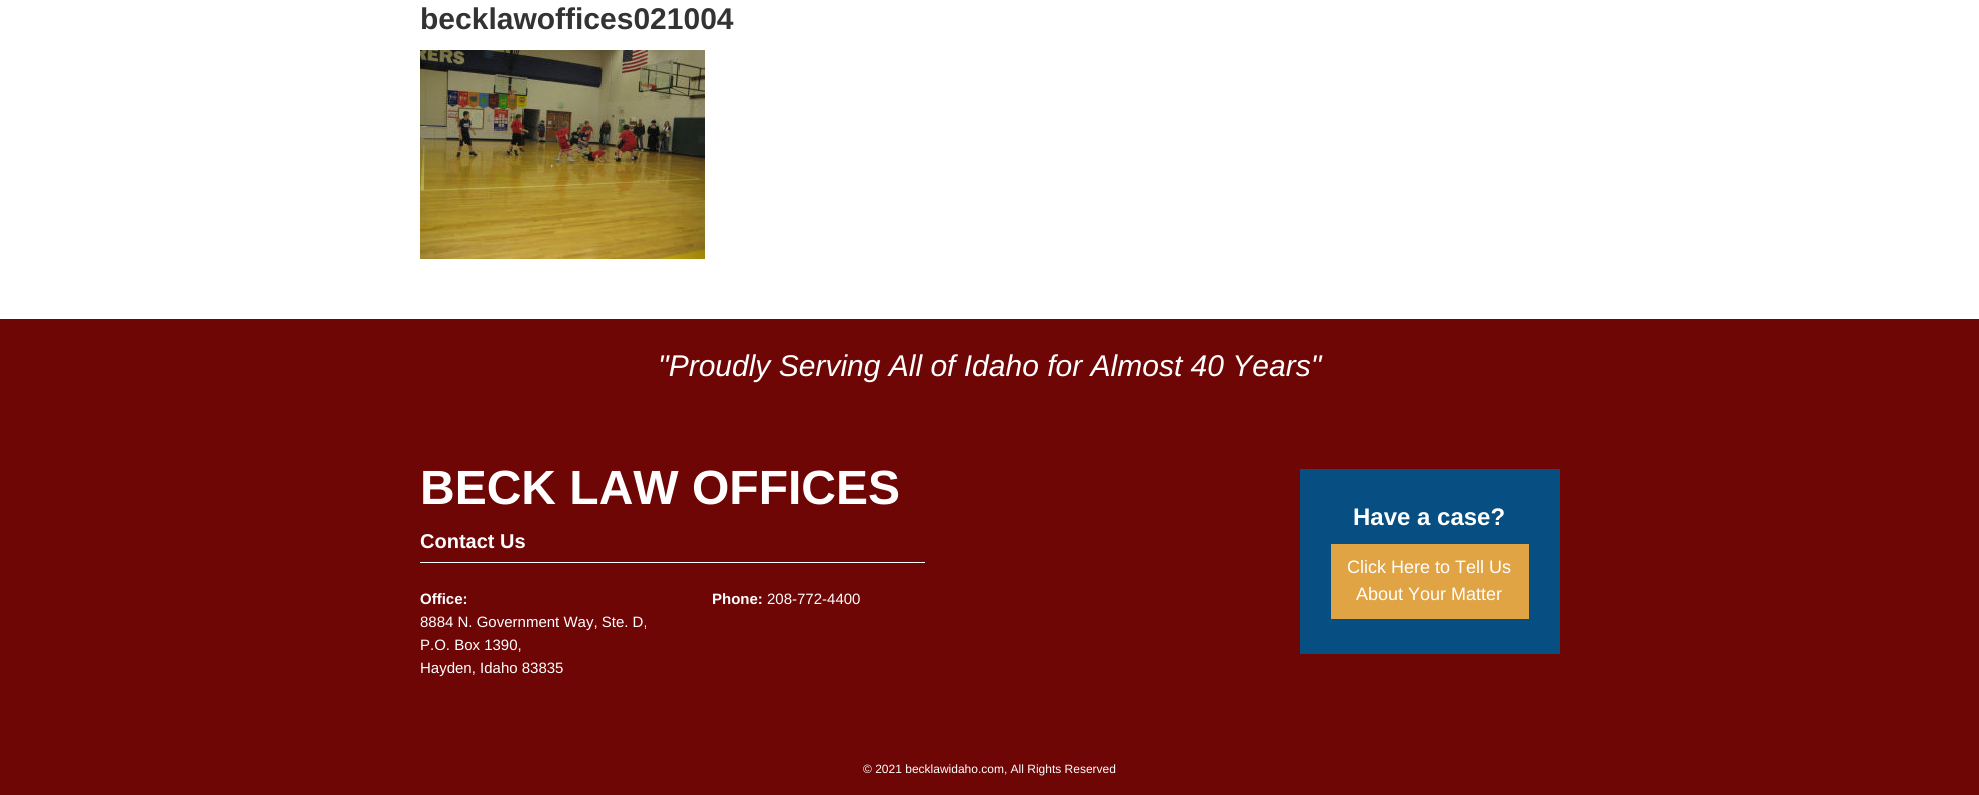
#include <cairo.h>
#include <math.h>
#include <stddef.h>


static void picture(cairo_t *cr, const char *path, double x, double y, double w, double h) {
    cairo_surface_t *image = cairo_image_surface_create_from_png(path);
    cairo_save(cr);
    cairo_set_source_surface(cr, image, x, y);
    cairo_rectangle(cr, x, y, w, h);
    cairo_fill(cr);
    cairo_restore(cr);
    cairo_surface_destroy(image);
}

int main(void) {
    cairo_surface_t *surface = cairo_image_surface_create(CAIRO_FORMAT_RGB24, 1979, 795);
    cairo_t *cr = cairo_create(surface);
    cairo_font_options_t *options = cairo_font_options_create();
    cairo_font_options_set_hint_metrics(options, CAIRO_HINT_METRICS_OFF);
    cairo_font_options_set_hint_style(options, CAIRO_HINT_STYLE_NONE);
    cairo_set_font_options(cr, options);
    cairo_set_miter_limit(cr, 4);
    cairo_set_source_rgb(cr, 1, 1, 1);
    cairo_paint(cr);
    cairo_select_font_face(cr, "Liberation Sans", CAIRO_FONT_SLANT_NORMAL, CAIRO_FONT_WEIGHT_BOLD);
    cairo_set_font_size(cr, 30);
    cairo_set_source_rgb(cr, 0.2, 0.2, 0.2);
    cairo_move_to(cr, 420, 29);
    cairo_show_text(cr, "becklawoffices021004");
    picture(cr, "img1.png", 420, 50, 285, 209);
    cairo_set_source_rgb(cr, 0.435, 0.027, 0.024);
    cairo_rectangle(cr, 0, 319, 1979, 476);
    cairo_fill(cr);
    cairo_select_font_face(cr, "Liberation Sans", CAIRO_FONT_SLANT_ITALIC, CAIRO_FONT_WEIGHT_NORMAL);
    cairo_set_source_rgb(cr, 1, 1, 1);
    cairo_move_to(cr, 658, 376);
    cairo_show_text(cr, "\"Proudly Serving All of Idaho for Almost 40 Years\"");
    cairo_select_font_face(cr, "Liberation Sans", CAIRO_FONT_SLANT_NORMAL, CAIRO_FONT_WEIGHT_BOLD);
    cairo_set_font_size(cr, 48);
    cairo_move_to(cr, 420, 504);
    cairo_show_text(cr, "BECK LAW OFFICES");
    cairo_rectangle(cr, 420, 562, 505, 1);
    cairo_fill(cr);
    cairo_set_font_size(cr, 20);
    cairo_move_to(cr, 420, 548);
    cairo_show_text(cr, "Contact Us");
    cairo_set_font_size(cr, 15);
    cairo_move_to(cr, 420, 604);
    cairo_show_text(cr, "Office:");
    cairo_select_font_face(cr, "Liberation Sans", CAIRO_FONT_SLANT_NORMAL, CAIRO_FONT_WEIGHT_NORMAL);
    cairo_move_to(cr, 420, 627);
    cairo_show_text(cr, "8884 N. Government Way, Ste. D,");
    cairo_move_to(cr, 420, 650);
    cairo_show_text(cr, "P.O. Box 1390,");
    cairo_move_to(cr, 420, 673);
    cairo_show_text(cr, "Hayden, Idaho 83835");
    cairo_select_font_face(cr, "Liberation Sans", CAIRO_FONT_SLANT_NORMAL, CAIRO_FONT_WEIGHT_BOLD);
    cairo_move_to(cr, 712, 604);
    cairo_show_text(cr, "Phone:");
    cairo_select_font_face(cr, "Liberation Sans", CAIRO_FONT_SLANT_NORMAL, CAIRO_FONT_WEIGHT_NORMAL);
    cairo_move_to(cr, 767, 604);
    cairo_show_text(cr, "208-772-4400");
    cairo_set_source_rgb(cr, 0.031, 0.31, 0.51);
    cairo_rectangle(cr, 1300, 469, 260, 185);
    cairo_fill(cr);
    cairo_select_font_face(cr, "Liberation Sans", CAIRO_FONT_SLANT_NORMAL, CAIRO_FONT_WEIGHT_BOLD);
    cairo_set_font_size(cr, 24);
    cairo_set_source_rgb(cr, 1, 1, 1);
    cairo_move_to(cr, 1353, 525);
    cairo_show_text(cr, "Have a case?");
    cairo_set_source_rgb(cr, 0.878, 0.643, 0.271);
    cairo_rectangle(cr, 1331, 544, 198, 75);
    cairo_fill(cr);
    cairo_select_font_face(cr, "Liberation Sans", CAIRO_FONT_SLANT_NORMAL, CAIRO_FONT_WEIGHT_NORMAL);
    cairo_set_font_size(cr, 18);
    cairo_set_source_rgb(cr, 1, 1, 1);
    cairo_move_to(cr, 1347, 573);
    cairo_show_text(cr, "Click Here to Tell Us");
    cairo_move_to(cr, 1356, 600);
    cairo_show_text(cr, "About Your Matter");
    cairo_set_font_size(cr, 12);
    cairo_move_to(cr, 863, 773);
    cairo_show_text(cr, "© 2021 becklawidaho.com, All Rights Reserved");
    cairo_surface_write_to_png(surface, "page.png");
    cairo_font_options_destroy(options);
    cairo_destroy(cr);
    cairo_surface_destroy(surface);
    return 0;
}
